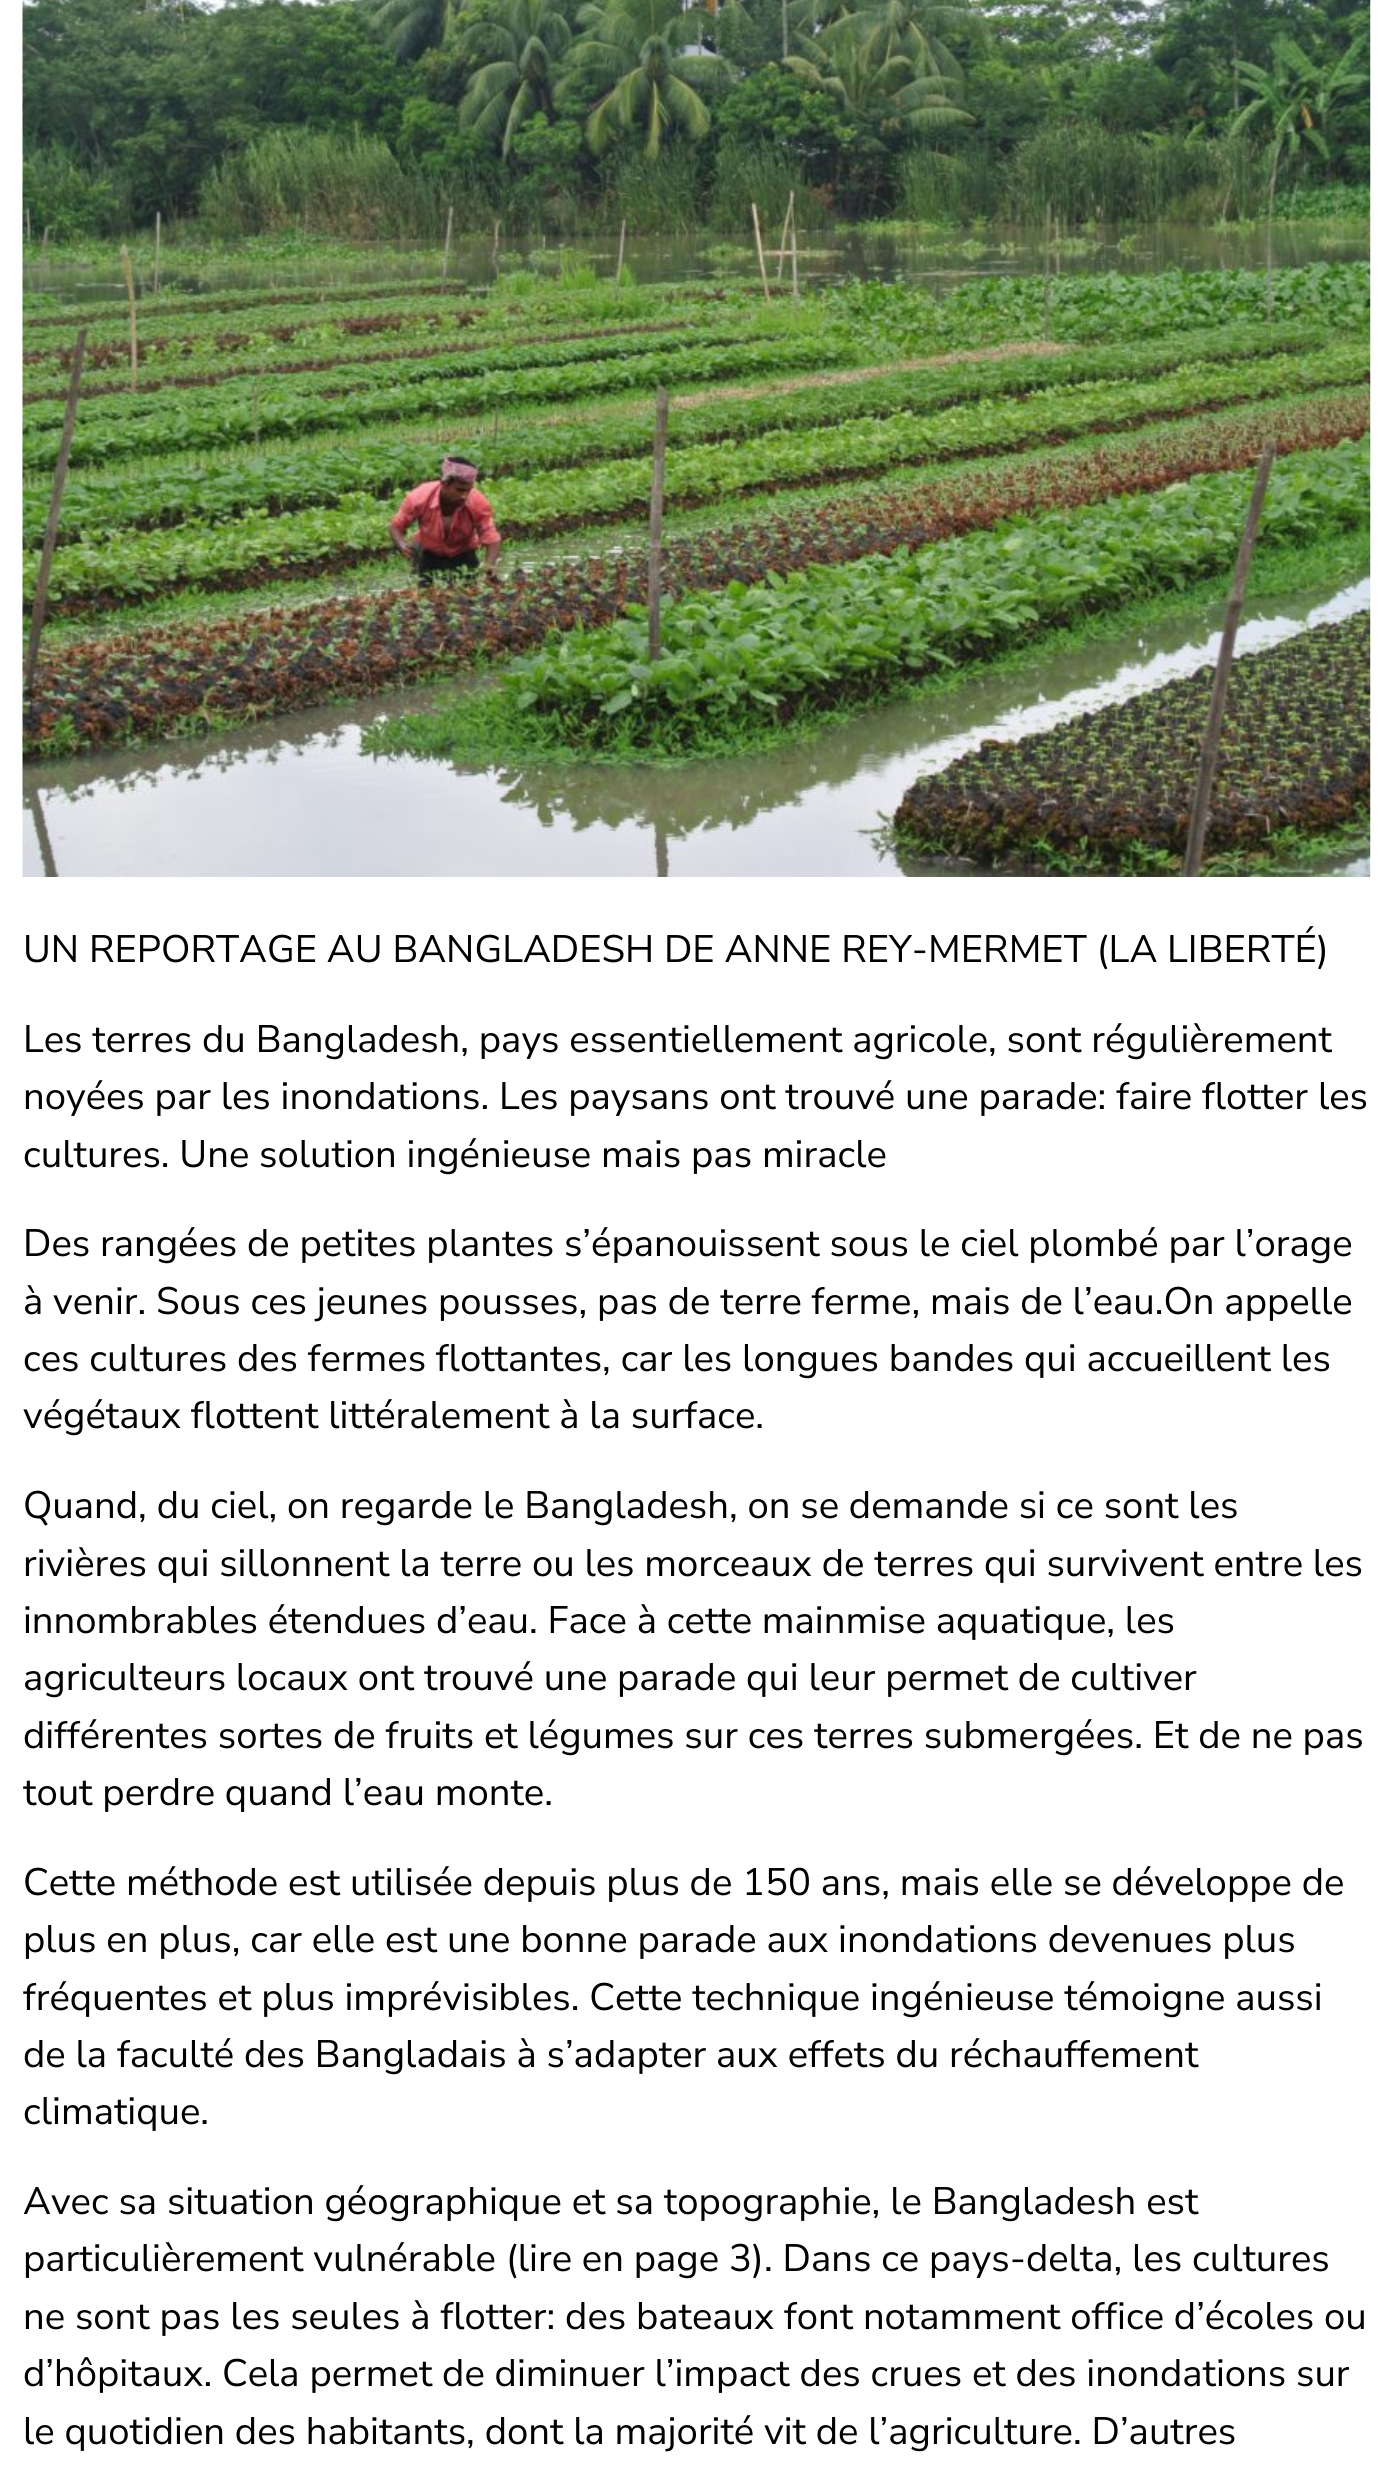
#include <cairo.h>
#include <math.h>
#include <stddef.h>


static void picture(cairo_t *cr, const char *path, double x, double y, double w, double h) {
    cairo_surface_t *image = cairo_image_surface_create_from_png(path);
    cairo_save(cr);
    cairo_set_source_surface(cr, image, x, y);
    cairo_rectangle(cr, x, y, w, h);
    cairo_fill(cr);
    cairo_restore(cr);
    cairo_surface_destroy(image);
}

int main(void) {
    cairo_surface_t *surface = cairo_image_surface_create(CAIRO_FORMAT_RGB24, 1392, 2486);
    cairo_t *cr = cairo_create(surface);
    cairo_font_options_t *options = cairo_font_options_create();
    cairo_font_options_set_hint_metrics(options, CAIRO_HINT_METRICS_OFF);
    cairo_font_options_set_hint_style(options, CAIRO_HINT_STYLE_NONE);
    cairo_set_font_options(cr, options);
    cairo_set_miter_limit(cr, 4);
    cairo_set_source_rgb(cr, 1, 1, 1);
    cairo_paint(cr);
    picture(cr, "img1.png", 22, 0, 1349, 877);
    cairo_select_font_face(cr, "Nunito Sans", CAIRO_FONT_SLANT_NORMAL, CAIRO_FONT_WEIGHT_NORMAL);
    cairo_set_font_size(cr, 38.25);
    cairo_set_source_rgb(cr, 0, 0, 0);
    cairo_move_to(cr, 23, 962);
    cairo_show_text(cr, "UN REPORTAGE AU BANGLADESH DE ANNE REY-MERMET (LA LIBERTÉ)");
    cairo_move_to(cr, 23, 1052);
    cairo_show_text(cr, "Les terres du Bangladesh, pays essentiellement agricole, sont régulièrement");
    cairo_move_to(cr, 23, 1109);
    cairo_show_text(cr, "noyées par les inondations. Les paysans ont trouvé une parade: faire flotter les");
    cairo_move_to(cr, 23, 1167);
    cairo_show_text(cr, "cultures. Une solution ingénieuse mais pas miracle");
    cairo_move_to(cr, 23, 1256);
    cairo_show_text(cr, "Des rangées de petites plantes s’épanouissent sous le ciel plombé par l’orage");
    cairo_move_to(cr, 23, 1314);
    cairo_show_text(cr, "à venir. Sous ces jeunes pousses, pas de terre ferme, mais de l’eau.On appelle");
    cairo_move_to(cr, 23, 1371);
    cairo_show_text(cr, "ces cultures des fermes flottantes, car les longues bandes qui accueillent les");
    cairo_move_to(cr, 23, 1428);
    cairo_show_text(cr, "végétaux flottent littéralement à la surface.");
    cairo_move_to(cr, 23, 1518);
    cairo_show_text(cr, "Quand, du ciel, on regarde le Bangladesh, on se demande si ce sont les");
    cairo_move_to(cr, 23, 1576);
    cairo_show_text(cr, "rivières qui sillonnent la terre ou les morceaux de terres qui survivent entre les");
    cairo_move_to(cr, 23, 1633);
    cairo_show_text(cr, "innombrables étendues d’eau. Face à cette mainmise aquatique, les");
    cairo_move_to(cr, 23, 1690);
    cairo_show_text(cr, "agriculteurs locaux ont trouvé une parade qui leur permet de cultiver");
    cairo_move_to(cr, 23, 1748);
    cairo_show_text(cr, "différentes sortes de fruits et légumes sur ces terres submergées. Et de ne pas");
    cairo_move_to(cr, 23, 1805);
    cairo_show_text(cr, "tout perdre quand l’eau monte.");
    cairo_move_to(cr, 23, 1895);
    cairo_show_text(cr, "Cette méthode est utilisée depuis plus de 150 ans, mais elle se développe de");
    cairo_move_to(cr, 23, 1952);
    cairo_show_text(cr, "plus en plus, car elle est une bonne parade aux inondations devenues plus");
    cairo_move_to(cr, 23, 2010);
    cairo_show_text(cr, "fréquentes et plus imprévisibles. Cette technique ingénieuse témoigne aussi");
    cairo_move_to(cr, 23, 2067);
    cairo_show_text(cr, "de la faculté des Bangladais à s’adapter aux effets du réchauffement");
    cairo_move_to(cr, 23, 2124);
    cairo_show_text(cr, "climatique.");
    cairo_move_to(cr, 23, 2214);
    cairo_show_text(cr, "Avec sa situation géographique et sa topographie, le Bangladesh est");
    cairo_move_to(cr, 23, 2271);
    cairo_show_text(cr, "particulièrement vulnérable (lire en page 3). Dans ce pays-delta, les cultures");
    cairo_move_to(cr, 23, 2329);
    cairo_show_text(cr, "ne sont pas les seules à flotter: des bateaux font notamment office d’écoles ou");
    cairo_move_to(cr, 23, 2386);
    cairo_show_text(cr, "d’hôpitaux. Cela permet de diminuer l’impact des crues et des inondations sur");
    cairo_move_to(cr, 23, 2444);
    cairo_show_text(cr, "le quotidien des habitants, dont la majorité vit de l’agriculture. D’autres");
    cairo_surface_write_to_png(surface, "page.png");
    cairo_font_options_destroy(options);
    cairo_destroy(cr);
    cairo_surface_destroy(surface);
    return 0;
}
